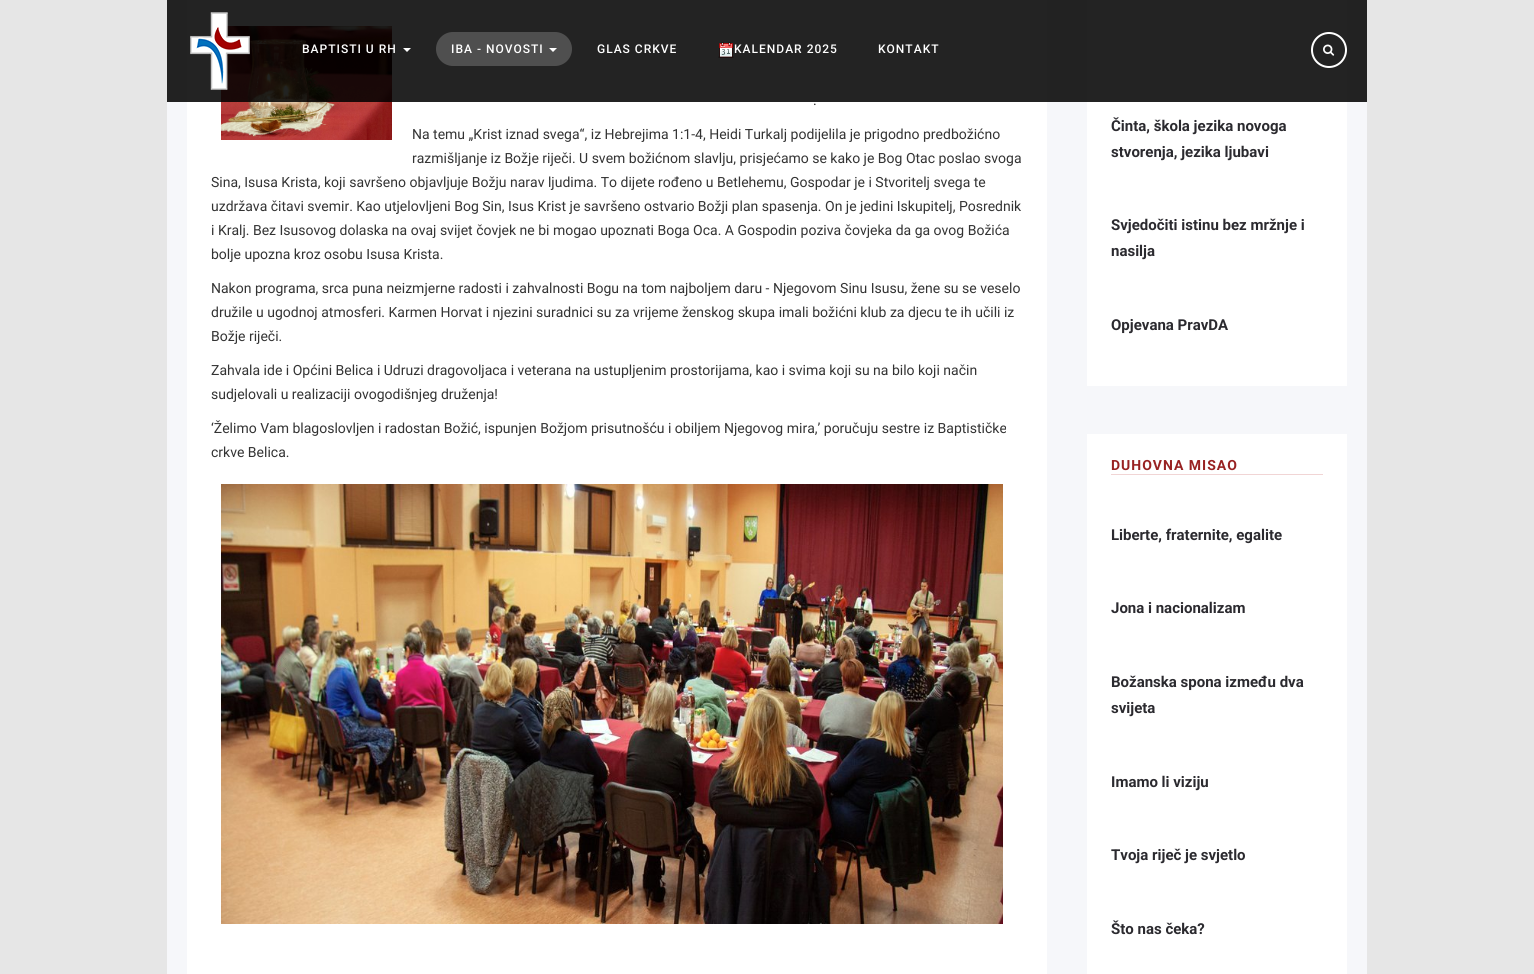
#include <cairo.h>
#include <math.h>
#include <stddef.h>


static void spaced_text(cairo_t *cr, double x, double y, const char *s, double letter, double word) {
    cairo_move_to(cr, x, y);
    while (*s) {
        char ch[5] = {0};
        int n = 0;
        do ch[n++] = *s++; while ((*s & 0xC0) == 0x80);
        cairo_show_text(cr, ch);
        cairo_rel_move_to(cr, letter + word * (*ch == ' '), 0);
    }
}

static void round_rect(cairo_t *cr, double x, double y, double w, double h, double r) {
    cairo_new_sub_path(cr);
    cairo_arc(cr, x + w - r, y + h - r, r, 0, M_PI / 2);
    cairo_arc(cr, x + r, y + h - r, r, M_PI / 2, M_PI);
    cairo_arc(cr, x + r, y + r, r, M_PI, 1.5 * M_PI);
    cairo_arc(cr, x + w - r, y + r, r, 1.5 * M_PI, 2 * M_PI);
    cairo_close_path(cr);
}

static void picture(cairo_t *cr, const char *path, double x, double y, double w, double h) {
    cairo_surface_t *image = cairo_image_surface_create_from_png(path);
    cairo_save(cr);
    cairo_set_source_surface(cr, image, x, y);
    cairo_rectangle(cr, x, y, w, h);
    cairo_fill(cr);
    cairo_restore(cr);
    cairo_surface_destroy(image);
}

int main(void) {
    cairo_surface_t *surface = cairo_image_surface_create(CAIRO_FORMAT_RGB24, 1534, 974);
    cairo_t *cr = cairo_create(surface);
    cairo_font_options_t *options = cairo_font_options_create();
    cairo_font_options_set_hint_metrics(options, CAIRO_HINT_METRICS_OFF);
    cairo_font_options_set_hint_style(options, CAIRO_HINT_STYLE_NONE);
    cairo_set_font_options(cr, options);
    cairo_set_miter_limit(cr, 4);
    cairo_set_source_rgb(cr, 0.902, 0.902, 0.902);
    cairo_paint(cr);
    cairo_set_source_rgb(cr, 0.961, 0.965, 0.98);
    cairo_rectangle(cr, 167, 0, 1200, 974);
    cairo_fill(cr);
    cairo_set_source_rgb(cr, 1, 1, 1);
    cairo_rectangle(cr, 187, 0, 860, 974);
    cairo_fill(cr);
    picture(cr, "img4.png", 221, 26, 171, 114);
    cairo_rectangle(cr, 1087, 0, 260, 386);
    cairo_fill(cr);
    cairo_set_source_rgba(cr, 0, 0, 0, 0.86);
    cairo_rectangle(cr, 167, 0, 1200, 102);
    cairo_fill(cr);
    picture(cr, "img1.png", 190, 12, 60, 78);
    cairo_select_font_face(cr, "Roboto Medium", CAIRO_FONT_SLANT_NORMAL, CAIRO_FONT_WEIGHT_NORMAL);
    cairo_set_font_size(cr, 12);
    cairo_set_source_rgb(cr, 1, 1, 1);
    spaced_text(cr, 302, 53, "BAPTISTI U RH", 1, 0);
    cairo_new_path(cr);
    cairo_move_to(cr, 403, 48);
    cairo_line_to(cr, 411, 48);
    cairo_line_to(cr, 407, 52);
    cairo_close_path(cr);
    cairo_fill(cr);
    cairo_set_source_rgba(cr, 1, 1, 1, 0.2);
    round_rect(cr, 436, 32, 136, 34, 17);
    cairo_fill(cr);
    cairo_set_source_rgb(cr, 1, 1, 1);
    spaced_text(cr, 451, 53, "IBA - NOVOSTI", 1, 0);
    cairo_new_path(cr);
    cairo_move_to(cr, 549, 48);
    cairo_line_to(cr, 557, 48);
    cairo_line_to(cr, 553, 52);
    cairo_close_path(cr);
    cairo_fill(cr);
    spaced_text(cr, 597, 53, "GLAS CRKVE", 1, 0);
    picture(cr, "img2.png", 718, 42, 16, 16);
    spaced_text(cr, 734, 53, "KALENDAR 2025", 1, 0);
    spaced_text(cr, 878, 53, "KONTAKT", 1, 0);
    cairo_new_path(cr);
    cairo_arc(cr, 1329, 50, 17, 0, 2 * M_PI);
    cairo_stroke(cr);
    picture(cr, "img3.png", 1323, 44, 12, 12);
    cairo_select_font_face(cr, "Roboto", CAIRO_FONT_SLANT_NORMAL, CAIRO_FONT_WEIGHT_NORMAL);
    cairo_set_font_size(cr, 14);
    cairo_set_source_rgb(cr, 0.2, 0.2, 0.2);
    cairo_move_to(cr, 813, 105);
    cairo_show_text(cr, ".");
    cairo_move_to(cr, 412, 139);
    cairo_show_text(cr, "Na temu „Krist iznad svega“, iz Hebrejima 1:1-4, Heidi Turkalj podijelila je prigodno predbožićno");
    cairo_move_to(cr, 412, 163);
    cairo_show_text(cr, "razmišljanje iz Božje riječi. U svem božićnom slavlju, prisjećamo se kako je Bog Otac poslao svoga");
    cairo_move_to(cr, 211, 187);
    cairo_show_text(cr, "Sina, Isusa Krista, koji savršeno objavljuje Božju narav ljudima. To dijete rođeno u Betlehemu, Gospodar je i Stvoritelj svega te");
    cairo_move_to(cr, 211, 211);
    cairo_show_text(cr, "uzdržava čitavi svemir. Kao utjelovljeni Bog Sin, Isus Krist je savršeno ostvario Božji plan spasenja. On je jedini Iskupitelj, Posrednik");
    cairo_move_to(cr, 211, 235);
    cairo_show_text(cr, "i Kralj. Bez Isusovog dolaska na ovaj svijet čovjek ne bi mogao upoznati Boga Oca. A Gospodin poziva čovjeka da ga ovog Božića");
    cairo_move_to(cr, 211, 259);
    cairo_show_text(cr, "bolje upozna kroz osobu Isusa Krista.");
    cairo_move_to(cr, 211, 293);
    cairo_show_text(cr, "Nakon programa, srca puna neizmjerne radosti i zahvalnosti Bogu na tom najboljem daru - Njegovom Sinu Isusu, žene su se veselo");
    cairo_move_to(cr, 211, 317);
    cairo_show_text(cr, "družile u ugodnoj atmosferi. Karmen Horvat i njezini suradnici su za vrijeme ženskog skupa imali božićni klub za djecu te ih učili iz");
    cairo_move_to(cr, 211, 341);
    cairo_show_text(cr, "Božje riječi.");
    cairo_move_to(cr, 211, 375);
    cairo_show_text(cr, "Zahvala ide i Općini Belica i Udruzi dragovoljaca i veterana na ustupljenim prostorijama, kao i svima koji su na bilo koji način");
    cairo_move_to(cr, 211, 399);
    cairo_show_text(cr, "sudjelovali u realizaciji ovogodišnjeg druženja!");
    cairo_move_to(cr, 211, 433);
    cairo_show_text(cr, "‘Želimo Vam blagoslovljen i radostan Božić, ispunjen Božjom prisutnošću i obiljem Njegovog mira,’ poručuju sestre iz Baptističke");
    cairo_move_to(cr, 211, 457);
    cairo_show_text(cr, "crkve Belica.");
    picture(cr, "img5.png", 221, 484, 782, 440);
    cairo_select_font_face(cr, "Roboto", CAIRO_FONT_SLANT_NORMAL, CAIRO_FONT_WEIGHT_BOLD);
    cairo_set_font_size(cr, 15);
    cairo_set_source_rgb(cr, 0.169, 0.165, 0.184);
    cairo_move_to(cr, 1111, 131);
    cairo_show_text(cr, "Činta, škola jezika novoga");
    cairo_move_to(cr, 1111, 157);
    cairo_show_text(cr, "stvorenja, jezika ljubavi");
    cairo_move_to(cr, 1111, 230);
    cairo_show_text(cr, "Svjedočiti istinu bez mržnje i");
    cairo_move_to(cr, 1111, 256);
    cairo_show_text(cr, "nasilja");
    cairo_move_to(cr, 1111, 330);
    cairo_show_text(cr, "Opjevana PravDA");
    cairo_set_source_rgb(cr, 1, 1, 1);
    cairo_rectangle(cr, 1087, 434, 260, 540);
    cairo_fill(cr);
    cairo_set_source_rgb(cr, 0.945, 0.835, 0.835);
    cairo_rectangle(cr, 1111, 474, 212, 1);
    cairo_fill(cr);
    cairo_set_font_size(cr, 14);
    cairo_set_source_rgb(cr, 0.596, 0.133, 0.133);
    spaced_text(cr, 1111, 470, "DUHOVNA MISAO", 1, 0);
    cairo_set_font_size(cr, 15);
    cairo_set_source_rgb(cr, 0.169, 0.165, 0.184);
    cairo_move_to(cr, 1111, 540);
    cairo_show_text(cr, "Liberte, fraternite, egalite");
    cairo_move_to(cr, 1111, 613);
    cairo_show_text(cr, "Jona i nacionalizam");
    cairo_move_to(cr, 1111, 687);
    cairo_show_text(cr, "Božanska spona između dva");
    cairo_move_to(cr, 1111, 713);
    cairo_show_text(cr, "svijeta");
    cairo_move_to(cr, 1111, 787);
    cairo_show_text(cr, "Imamo li viziju");
    cairo_move_to(cr, 1111, 860);
    cairo_show_text(cr, "Tvoja riječ je svjetlo");
    cairo_move_to(cr, 1111, 934);
    cairo_show_text(cr, "Što nas čeka?");
    cairo_surface_write_to_png(surface, "page.png");
    cairo_font_options_destroy(options);
    cairo_destroy(cr);
    cairo_surface_destroy(surface);
    return 0;
}
